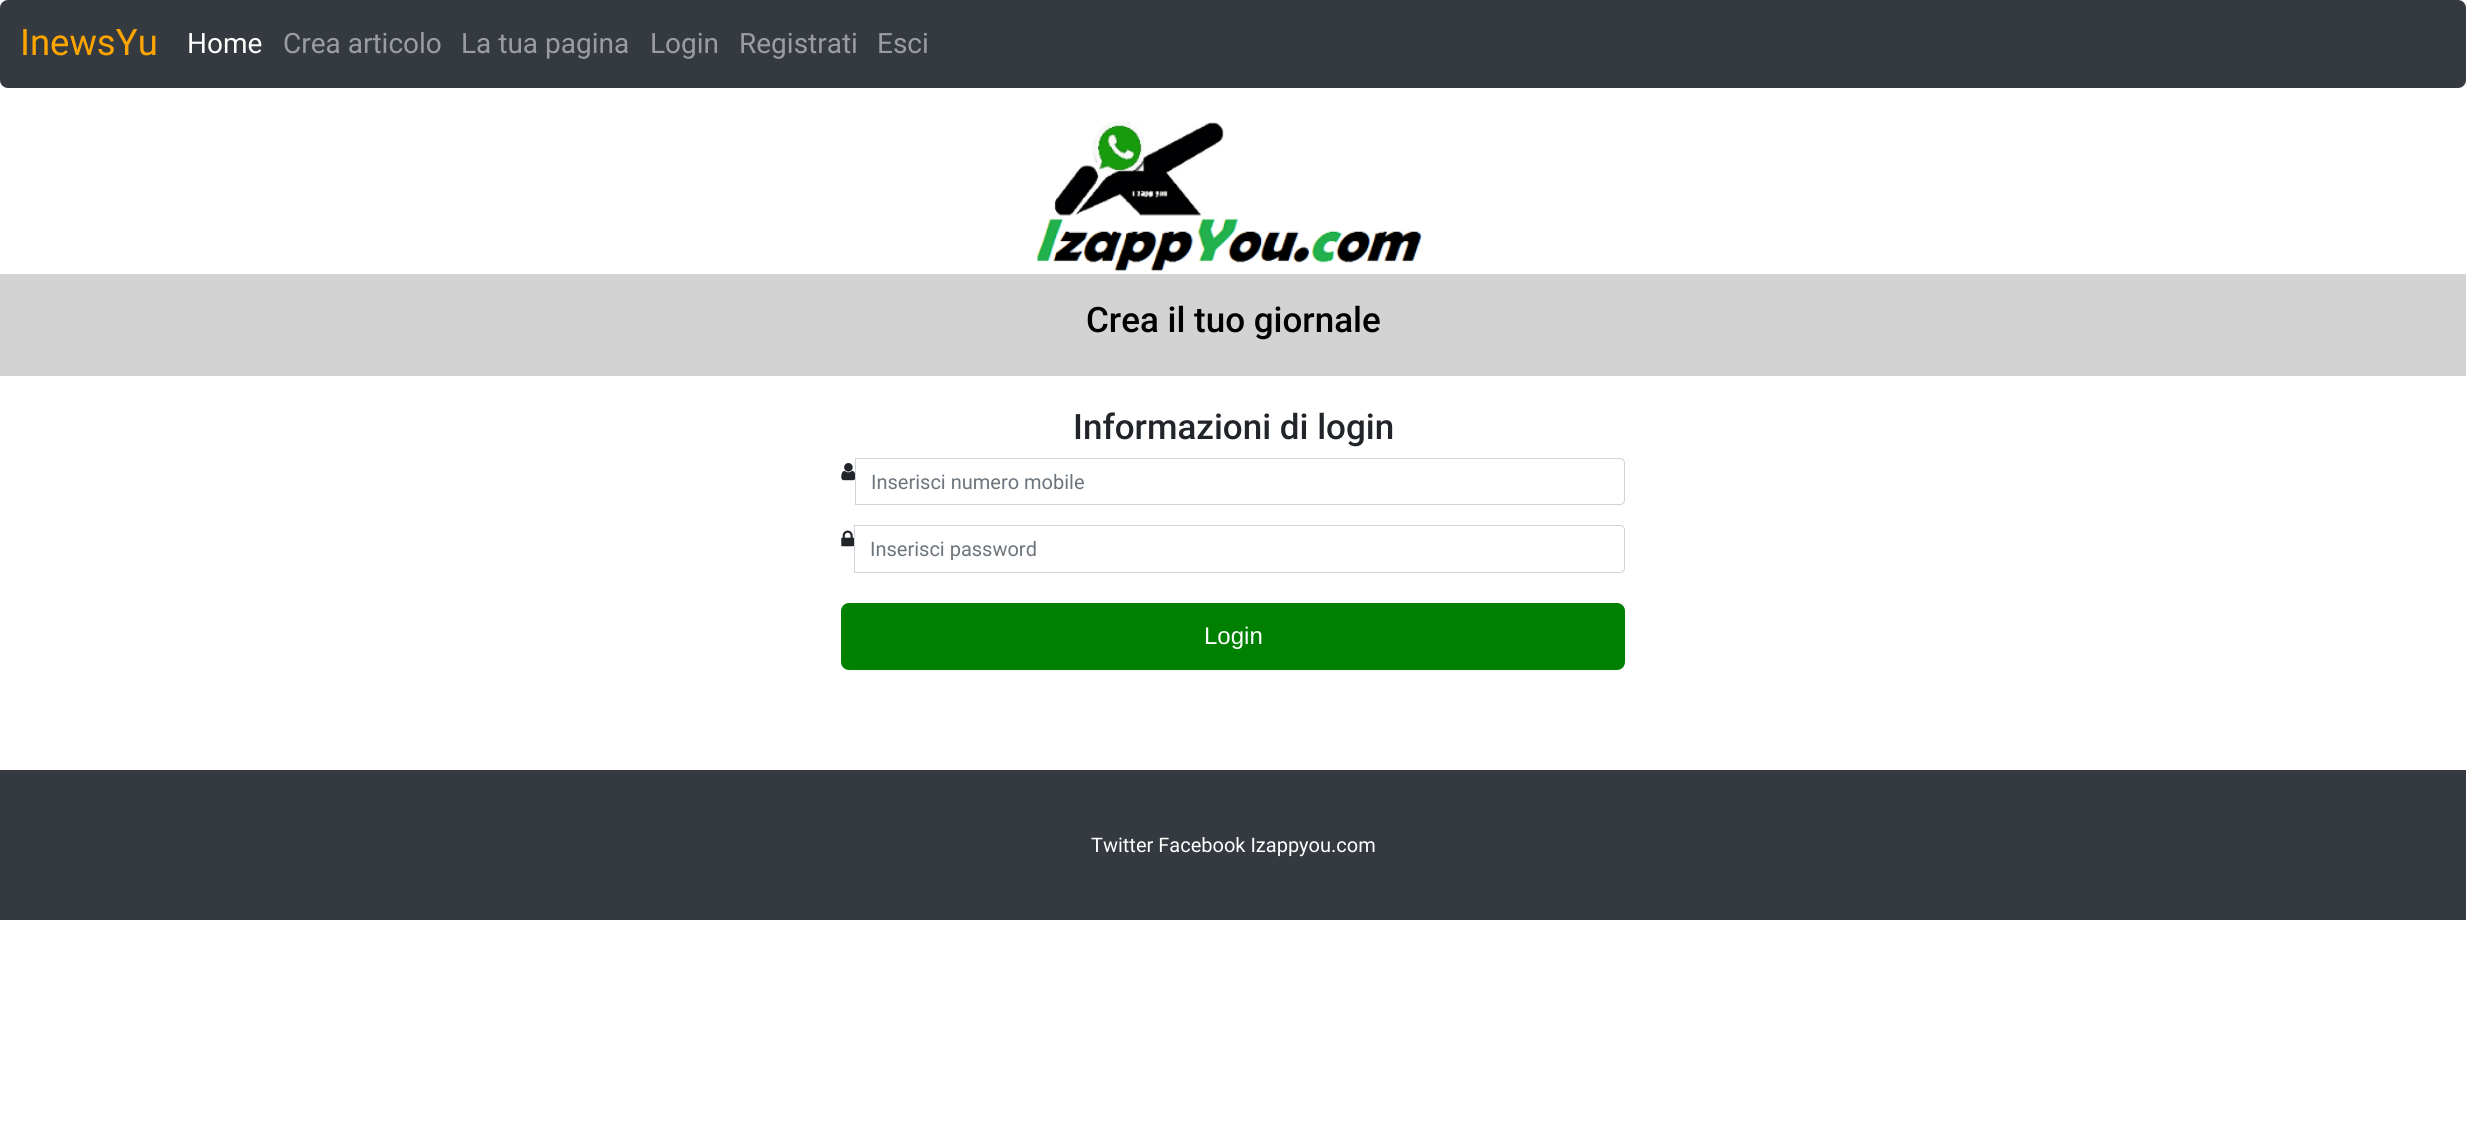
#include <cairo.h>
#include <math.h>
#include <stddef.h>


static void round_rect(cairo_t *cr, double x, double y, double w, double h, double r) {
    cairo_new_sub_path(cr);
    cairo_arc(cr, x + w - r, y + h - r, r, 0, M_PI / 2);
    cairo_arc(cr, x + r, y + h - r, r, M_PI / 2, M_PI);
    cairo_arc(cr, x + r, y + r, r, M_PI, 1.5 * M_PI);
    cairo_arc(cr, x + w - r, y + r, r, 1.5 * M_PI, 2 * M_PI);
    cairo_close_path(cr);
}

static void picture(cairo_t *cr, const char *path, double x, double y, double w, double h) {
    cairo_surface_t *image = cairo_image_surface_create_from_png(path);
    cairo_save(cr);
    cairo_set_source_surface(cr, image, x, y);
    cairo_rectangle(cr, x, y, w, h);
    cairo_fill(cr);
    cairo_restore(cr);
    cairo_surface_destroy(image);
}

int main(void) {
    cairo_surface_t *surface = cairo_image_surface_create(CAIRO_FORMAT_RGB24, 2466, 1136);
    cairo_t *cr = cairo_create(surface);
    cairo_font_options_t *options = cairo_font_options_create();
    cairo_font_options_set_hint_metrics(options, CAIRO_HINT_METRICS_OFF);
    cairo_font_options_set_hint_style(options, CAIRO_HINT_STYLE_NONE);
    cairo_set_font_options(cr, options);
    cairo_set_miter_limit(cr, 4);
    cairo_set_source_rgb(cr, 1, 1, 1);
    cairo_paint(cr);
    cairo_set_source_rgb(cr, 0.204, 0.227, 0.251);
    round_rect(cr, 0, 0, 2466, 88, 8);
    cairo_fill(cr);
    cairo_select_font_face(cr, "Roboto", CAIRO_FONT_SLANT_NORMAL, CAIRO_FONT_WEIGHT_NORMAL);
    cairo_set_font_size(cr, 36.5);
    cairo_set_source_rgb(cr, 1, 0.647, 0);
    cairo_move_to(cr, 20, 55);
    cairo_show_text(cr, "InewsYu");
    cairo_set_font_size(cr, 28);
    cairo_set_source_rgb(cr, 1, 1, 1);
    cairo_move_to(cr, 187, 53);
    cairo_show_text(cr, "Home");
    cairo_set_source_rgb(cr, 0.604, 0.616, 0.627);
    cairo_move_to(cr, 283, 53);
    cairo_show_text(cr, "Crea articolo");
    cairo_move_to(cr, 461, 53);
    cairo_show_text(cr, "La tua pagina");
    cairo_move_to(cr, 650, 53);
    cairo_show_text(cr, "Login");
    cairo_move_to(cr, 739, 53);
    cairo_show_text(cr, "Registrati");
    cairo_move_to(cr, 877, 53);
    cairo_show_text(cr, "Esci");
    picture(cr, "img1.png", 1037, 122, 385, 149);
    cairo_set_source_rgb(cr, 0.827, 0.827, 0.827);
    cairo_rectangle(cr, 0, 274, 2466, 102);
    cairo_fill(cr);
    cairo_select_font_face(cr, "Roboto Medium", CAIRO_FONT_SLANT_NORMAL, CAIRO_FONT_WEIGHT_NORMAL);
    cairo_set_font_size(cr, 35);
    cairo_set_source_rgb(cr, 0, 0, 0);
    cairo_move_to(cr, 1086, 332);
    cairo_show_text(cr, "Crea il tuo giornale");
    cairo_set_source_rgb(cr, 0.129, 0.145, 0.161);
    cairo_move_to(cr, 1073, 439);
    cairo_show_text(cr, "Informazioni di login");
    picture(cr, "img2.png", 841, 463, 14, 18);
    cairo_new_path(cr);
    cairo_move_to(cr, 855.5, 458.5);
    cairo_line_to(cr, 1620, 458.5);
    cairo_curve_to(cr, 1622.5, 458.5, 1624.5, 460.5, 1624.5, 463);
    cairo_line_to(cr, 1624.5, 500);
    cairo_curve_to(cr, 1624.5, 502.5, 1622.5, 504.5, 1620, 504.5);
    cairo_line_to(cr, 855.5, 504.5);
    cairo_close_path(cr);
    cairo_set_source_rgb(cr, 0.808, 0.831, 0.855);
    cairo_set_line_width(cr, 1);
    cairo_stroke(cr);
    cairo_select_font_face(cr, "Roboto", CAIRO_FONT_SLANT_NORMAL, CAIRO_FONT_WEIGHT_NORMAL);
    cairo_set_font_size(cr, 20);
    cairo_set_source_rgb(cr, 0.424, 0.459, 0.49);
    cairo_move_to(cr, 871, 489);
    cairo_show_text(cr, "Inserisci numero mobile");
    picture(cr, "img3.png", 841, 530, 13, 17);
    cairo_new_path(cr);
    cairo_move_to(cr, 854.5, 525.5);
    cairo_line_to(cr, 1620, 525.5);
    cairo_curve_to(cr, 1622.5, 525.5, 1624.5, 527.5, 1624.5, 530);
    cairo_line_to(cr, 1624.5, 568);
    cairo_curve_to(cr, 1624.5, 570.5, 1622.5, 572.5, 1620, 572.5);
    cairo_line_to(cr, 854.5, 572.5);
    cairo_close_path(cr);
    cairo_set_source_rgb(cr, 0.808, 0.831, 0.855);
    cairo_stroke(cr);
    cairo_set_source_rgb(cr, 0.424, 0.459, 0.49);
    cairo_move_to(cr, 870, 556);
    cairo_show_text(cr, "Inserisci password");
    cairo_set_source_rgb(cr, 0, 0.502, 0);
    round_rect(cr, 841, 603, 784, 67, 8);
    cairo_fill(cr);
    cairo_select_font_face(cr, "Liberation Sans", CAIRO_FONT_SLANT_NORMAL, CAIRO_FONT_WEIGHT_NORMAL);
    cairo_set_font_size(cr, 24);
    cairo_set_source_rgb(cr, 1, 1, 1);
    cairo_move_to(cr, 1204, 644);
    cairo_show_text(cr, "Login");
    cairo_set_source_rgb(cr, 0.204, 0.227, 0.251);
    cairo_rectangle(cr, 0, 770, 2466, 150);
    cairo_fill(cr);
    cairo_select_font_face(cr, "Roboto", CAIRO_FONT_SLANT_NORMAL, CAIRO_FONT_WEIGHT_NORMAL);
    cairo_set_font_size(cr, 20);
    cairo_set_source_rgb(cr, 1, 1, 1);
    cairo_move_to(cr, 1091, 852);
    cairo_show_text(cr, "Twitter Facebook Izappyou.com");
    cairo_surface_write_to_png(surface, "page.png");
    cairo_font_options_destroy(options);
    cairo_destroy(cr);
    cairo_surface_destroy(surface);
    return 0;
}
